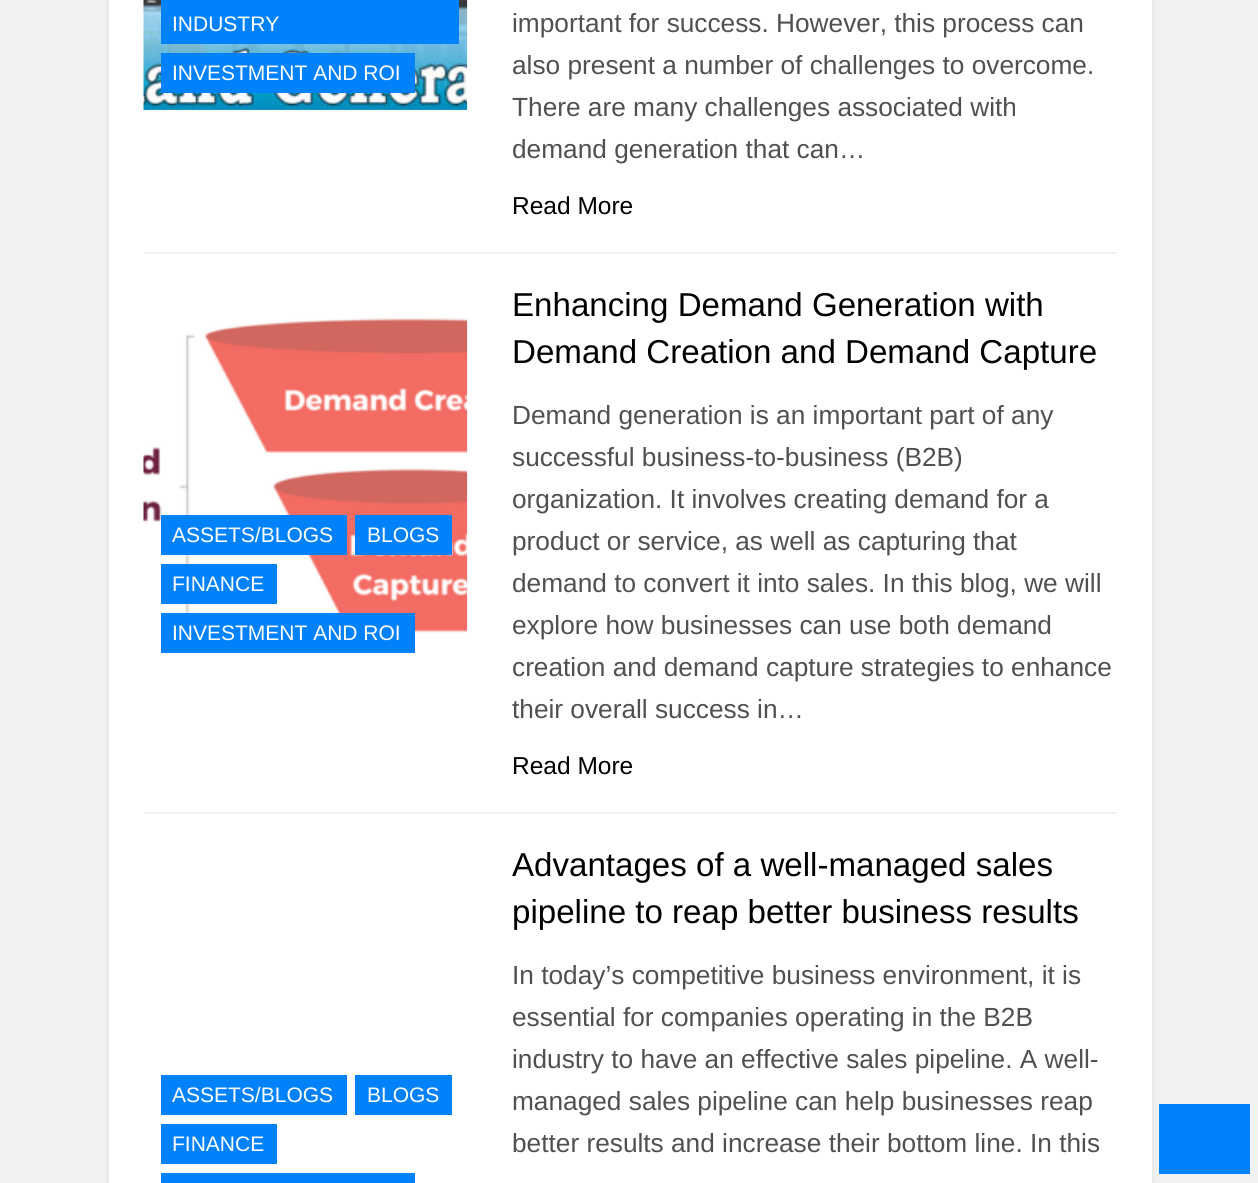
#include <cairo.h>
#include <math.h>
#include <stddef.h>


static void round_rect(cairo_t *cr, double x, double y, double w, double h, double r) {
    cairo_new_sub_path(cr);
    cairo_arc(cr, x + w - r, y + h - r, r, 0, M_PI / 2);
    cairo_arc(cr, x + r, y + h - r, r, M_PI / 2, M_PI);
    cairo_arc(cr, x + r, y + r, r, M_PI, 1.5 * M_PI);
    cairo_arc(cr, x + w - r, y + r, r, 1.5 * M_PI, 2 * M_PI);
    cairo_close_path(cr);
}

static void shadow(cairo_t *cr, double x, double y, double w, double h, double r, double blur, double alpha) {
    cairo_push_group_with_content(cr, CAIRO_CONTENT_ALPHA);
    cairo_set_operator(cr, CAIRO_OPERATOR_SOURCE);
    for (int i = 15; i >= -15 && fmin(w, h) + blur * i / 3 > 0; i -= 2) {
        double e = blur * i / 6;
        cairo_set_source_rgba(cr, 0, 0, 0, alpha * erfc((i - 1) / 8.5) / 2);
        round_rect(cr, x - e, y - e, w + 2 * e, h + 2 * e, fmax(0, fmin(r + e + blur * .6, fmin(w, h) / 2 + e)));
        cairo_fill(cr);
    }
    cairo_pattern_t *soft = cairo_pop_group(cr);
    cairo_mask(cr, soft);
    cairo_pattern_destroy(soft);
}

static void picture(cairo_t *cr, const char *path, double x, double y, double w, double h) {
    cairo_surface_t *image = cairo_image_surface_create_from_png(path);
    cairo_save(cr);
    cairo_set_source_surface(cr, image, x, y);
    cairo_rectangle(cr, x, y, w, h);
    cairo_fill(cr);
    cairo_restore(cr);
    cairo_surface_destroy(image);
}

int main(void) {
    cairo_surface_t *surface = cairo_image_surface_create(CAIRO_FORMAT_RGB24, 1258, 1183);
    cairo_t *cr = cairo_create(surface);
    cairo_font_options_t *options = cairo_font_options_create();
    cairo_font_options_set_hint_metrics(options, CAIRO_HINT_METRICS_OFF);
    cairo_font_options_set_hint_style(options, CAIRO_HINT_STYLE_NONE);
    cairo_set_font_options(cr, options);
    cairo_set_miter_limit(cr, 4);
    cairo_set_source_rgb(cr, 0.941, 0.945, 0.949);
    cairo_paint(cr);
    cairo_set_source_rgb(cr, 0, 0, 0);
    shadow(cr, 109, -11, 1043, 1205, 0, 3.5, 0.08);
    cairo_set_source_rgb(cr, 1, 1, 1);
    cairo_rectangle(cr, 109, 0, 1043, 1183);
    cairo_fill(cr);
    cairo_set_source_rgb(cr, 0.941, 0.941, 0.941);
    cairo_rectangle(cr, 144, 252, 973, 2);
    cairo_fill(cr);
    picture(cr, "img1.png", 143, 0, 325, 110);
    cairo_set_source_rgb(cr, 0.008, 0.51, 0.98);
    cairo_rectangle(cr, 161, 0, 298, 44);
    cairo_fill(cr);
    cairo_select_font_face(cr, "Liberation Sans", CAIRO_FONT_SLANT_NORMAL, CAIRO_FONT_WEIGHT_NORMAL);
    cairo_set_font_size(cr, 21);
    cairo_set_source_rgb(cr, 1, 1, 1);
    cairo_move_to(cr, 172, 31);
    cairo_show_text(cr, "INDUSTRY");
    cairo_set_source_rgb(cr, 0.008, 0.51, 0.98);
    cairo_rectangle(cr, 161, 53, 254, 40);
    cairo_fill(cr);
    cairo_set_source_rgb(cr, 1, 1, 1);
    cairo_move_to(cr, 172, 80);
    cairo_show_text(cr, "INVESTMENT AND ROI");
    cairo_set_font_size(cr, 26.25);
    cairo_set_source_rgb(cr, 0.314, 0.314, 0.314);
    cairo_move_to(cr, 512, 32);
    cairo_show_text(cr, "important for success. However, this process can");
    cairo_move_to(cr, 512, 74);
    cairo_show_text(cr, "also present a number of challenges to overcome.");
    cairo_move_to(cr, 512, 116);
    cairo_show_text(cr, "There are many challenges associated with");
    cairo_move_to(cr, 512, 158);
    cairo_show_text(cr, "demand generation that can…");
    cairo_set_font_size(cr, 24.5);
    cairo_set_source_rgb(cr, 0, 0, 0);
    cairo_move_to(cr, 512, 214);
    cairo_show_text(cr, "Read More");
    cairo_set_source_rgb(cr, 0.941, 0.941, 0.941);
    cairo_rectangle(cr, 144, 812, 973, 2);
    cairo_fill(cr);
    picture(cr, "img2.png", 143, 318, 325, 315);
    cairo_set_source_rgb(cr, 0.008, 0.51, 0.98);
    cairo_rectangle(cr, 161, 515, 186, 40);
    cairo_fill(cr);
    cairo_set_font_size(cr, 21);
    cairo_set_source_rgb(cr, 1, 1, 1);
    cairo_move_to(cr, 172, 542);
    cairo_show_text(cr, "ASSETS/BLOGS");
    cairo_set_source_rgb(cr, 0.008, 0.51, 0.98);
    cairo_rectangle(cr, 355, 515, 97, 40);
    cairo_fill(cr);
    cairo_set_source_rgb(cr, 1, 1, 1);
    cairo_move_to(cr, 367, 542);
    cairo_show_text(cr, "BLOGS");
    cairo_set_source_rgb(cr, 0.008, 0.51, 0.98);
    cairo_rectangle(cr, 161, 564, 116, 40);
    cairo_fill(cr);
    cairo_set_source_rgb(cr, 1, 1, 1);
    cairo_move_to(cr, 172, 591);
    cairo_show_text(cr, "FINANCE");
    cairo_set_source_rgb(cr, 0.008, 0.51, 0.98);
    cairo_rectangle(cr, 161, 613, 254, 40);
    cairo_fill(cr);
    cairo_set_source_rgb(cr, 1, 1, 1);
    cairo_move_to(cr, 172, 640);
    cairo_show_text(cr, "INVESTMENT AND ROI");
    cairo_set_font_size(cr, 33.1);
    cairo_set_source_rgb(cr, 0, 0, 0);
    cairo_move_to(cr, 512, 316);
    cairo_show_text(cr, "Enhancing Demand Generation with");
    cairo_move_to(cr, 512, 363);
    cairo_show_text(cr, "Demand Creation and Demand Capture");
    cairo_set_font_size(cr, 26.25);
    cairo_set_source_rgb(cr, 0.314, 0.314, 0.314);
    cairo_move_to(cr, 512, 424);
    cairo_show_text(cr, "Demand generation is an important part of any");
    cairo_move_to(cr, 512, 466);
    cairo_show_text(cr, "successful business-to-business (B2B)");
    cairo_move_to(cr, 512, 508);
    cairo_show_text(cr, "organization. It involves creating demand for a");
    cairo_move_to(cr, 512, 550);
    cairo_show_text(cr, "product or service, as well as capturing that");
    cairo_move_to(cr, 512, 592);
    cairo_show_text(cr, "demand to convert it into sales. In this blog, we will");
    cairo_move_to(cr, 512, 634);
    cairo_show_text(cr, "explore how businesses can use both demand");
    cairo_move_to(cr, 512, 676);
    cairo_show_text(cr, "creation and demand capture strategies to enhance");
    cairo_move_to(cr, 512, 718);
    cairo_show_text(cr, "their overall success in…");
    cairo_set_font_size(cr, 24.5);
    cairo_set_source_rgb(cr, 0, 0, 0);
    cairo_move_to(cr, 512, 774);
    cairo_show_text(cr, "Read More");
    cairo_set_source_rgb(cr, 0.008, 0.51, 0.98);
    cairo_rectangle(cr, 161, 1075, 186, 40);
    cairo_fill(cr);
    cairo_set_font_size(cr, 21);
    cairo_set_source_rgb(cr, 1, 1, 1);
    cairo_move_to(cr, 172, 1102);
    cairo_show_text(cr, "ASSETS/BLOGS");
    cairo_set_source_rgb(cr, 0.008, 0.51, 0.98);
    cairo_rectangle(cr, 355, 1075, 97, 40);
    cairo_fill(cr);
    cairo_set_source_rgb(cr, 1, 1, 1);
    cairo_move_to(cr, 367, 1102);
    cairo_show_text(cr, "BLOGS");
    cairo_set_source_rgb(cr, 0.008, 0.51, 0.98);
    cairo_rectangle(cr, 161, 1124, 116, 40);
    cairo_fill(cr);
    cairo_set_source_rgb(cr, 1, 1, 1);
    cairo_move_to(cr, 172, 1151);
    cairo_show_text(cr, "FINANCE");
    cairo_set_source_rgb(cr, 0.008, 0.51, 0.98);
    cairo_rectangle(cr, 161, 1173, 254, 10);
    cairo_fill(cr);
    cairo_set_font_size(cr, 33.1);
    cairo_set_source_rgb(cr, 0, 0, 0);
    cairo_move_to(cr, 512, 876);
    cairo_show_text(cr, "Advantages of a well-managed sales");
    cairo_move_to(cr, 512, 923);
    cairo_show_text(cr, "pipeline to reap better business results");
    cairo_set_font_size(cr, 26.25);
    cairo_set_source_rgb(cr, 0.314, 0.314, 0.314);
    cairo_move_to(cr, 512, 984);
    cairo_show_text(cr, "In today’s competitive business environment, it is");
    cairo_move_to(cr, 512, 1026);
    cairo_show_text(cr, "essential for companies operating in the B2B");
    cairo_move_to(cr, 512, 1068);
    cairo_show_text(cr, "industry to have an effective sales pipeline. A well-");
    cairo_move_to(cr, 512, 1110);
    cairo_show_text(cr, "managed sales pipeline can help businesses reap");
    cairo_move_to(cr, 512, 1152);
    cairo_show_text(cr, "better results and increase their bottom line. In this");
    cairo_set_source_rgb(cr, 0.008, 0.51, 0.98);
    cairo_rectangle(cr, 1159, 1104, 91, 70);
    cairo_fill(cr);
    cairo_surface_write_to_png(surface, "page.png");
    cairo_font_options_destroy(options);
    cairo_destroy(cr);
    cairo_surface_destroy(surface);
    return 0;
}
